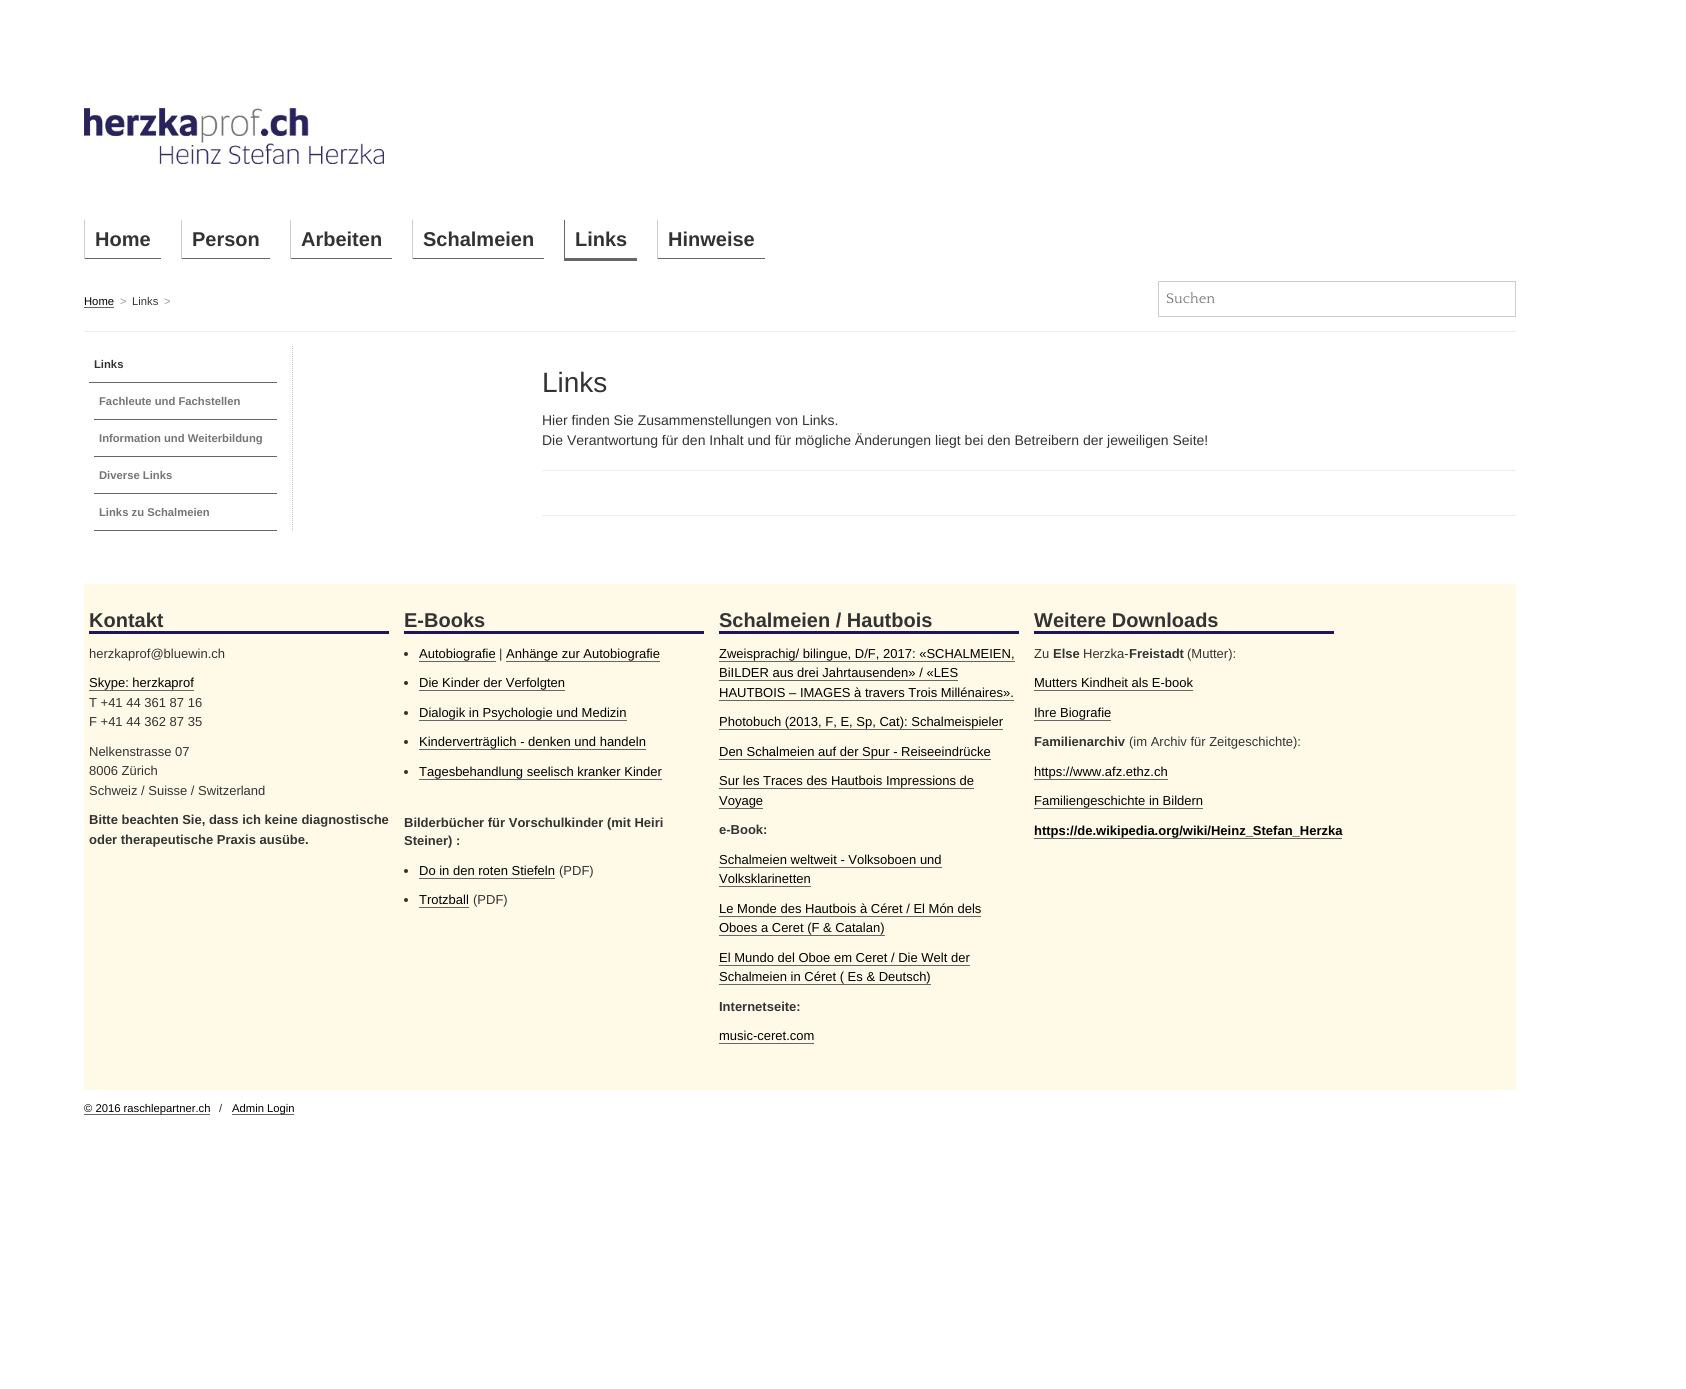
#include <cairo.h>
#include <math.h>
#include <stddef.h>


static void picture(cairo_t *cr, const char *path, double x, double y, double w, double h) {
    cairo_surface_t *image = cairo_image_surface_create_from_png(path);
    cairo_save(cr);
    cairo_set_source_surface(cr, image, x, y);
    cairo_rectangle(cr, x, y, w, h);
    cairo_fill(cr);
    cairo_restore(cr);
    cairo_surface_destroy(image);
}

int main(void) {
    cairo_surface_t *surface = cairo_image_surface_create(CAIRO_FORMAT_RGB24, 1686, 1389);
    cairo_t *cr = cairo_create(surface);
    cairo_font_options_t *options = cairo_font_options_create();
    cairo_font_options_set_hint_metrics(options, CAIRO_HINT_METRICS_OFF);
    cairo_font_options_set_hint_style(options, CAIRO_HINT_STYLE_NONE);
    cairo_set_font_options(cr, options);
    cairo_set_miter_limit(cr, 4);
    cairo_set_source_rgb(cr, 1, 1, 1);
    cairo_paint(cr);
    picture(cr, "img1.png", 84, 108, 300, 56);
    cairo_set_source_rgb(cr, 0.4, 0.4, 0.4);
    cairo_rectangle(cr, 84, 258, 77, 1);
    cairo_fill(cr);
    cairo_set_source_rgb(cr, 0.8, 0.8, 0.8);
    cairo_rectangle(cr, 84, 220, 1, 39);
    cairo_fill(cr);
    cairo_select_font_face(cr, "Liberation Sans", CAIRO_FONT_SLANT_NORMAL, CAIRO_FONT_WEIGHT_BOLD);
    cairo_set_font_size(cr, 20);
    cairo_set_source_rgb(cr, 0.2, 0.2, 0.2);
    cairo_move_to(cr, 95, 246);
    cairo_show_text(cr, "Home");
    cairo_set_source_rgb(cr, 0.4, 0.4, 0.4);
    cairo_rectangle(cr, 181, 258, 89, 1);
    cairo_fill(cr);
    cairo_set_source_rgb(cr, 0.8, 0.8, 0.8);
    cairo_rectangle(cr, 181, 220, 1, 39);
    cairo_fill(cr);
    cairo_set_source_rgb(cr, 0.2, 0.2, 0.2);
    cairo_move_to(cr, 192, 246);
    cairo_show_text(cr, "Person");
    cairo_set_source_rgb(cr, 0.4, 0.4, 0.4);
    cairo_rectangle(cr, 290, 258, 102, 1);
    cairo_fill(cr);
    cairo_set_source_rgb(cr, 0.8, 0.8, 0.8);
    cairo_rectangle(cr, 290, 220, 1, 39);
    cairo_fill(cr);
    cairo_set_source_rgb(cr, 0.2, 0.2, 0.2);
    cairo_move_to(cr, 301, 246);
    cairo_show_text(cr, "Arbeiten");
    cairo_set_source_rgb(cr, 0.4, 0.4, 0.4);
    cairo_rectangle(cr, 412, 258, 132, 1);
    cairo_fill(cr);
    cairo_set_source_rgb(cr, 0.8, 0.8, 0.8);
    cairo_rectangle(cr, 412, 220, 1, 39);
    cairo_fill(cr);
    cairo_set_source_rgb(cr, 0.2, 0.2, 0.2);
    cairo_move_to(cr, 423, 246);
    cairo_show_text(cr, "Schalmeien");
    cairo_set_source_rgb(cr, 0.4, 0.4, 0.4);
    cairo_rectangle(cr, 564, 258, 73, 3);
    cairo_fill(cr);
    cairo_rectangle(cr, 564, 220, 1, 41);
    cairo_fill(cr);
    cairo_set_source_rgb(cr, 0.2, 0.2, 0.2);
    cairo_move_to(cr, 575, 246);
    cairo_show_text(cr, "Links");
    cairo_set_source_rgb(cr, 0.4, 0.4, 0.4);
    cairo_rectangle(cr, 657, 258, 108, 1);
    cairo_fill(cr);
    cairo_set_source_rgb(cr, 0.8, 0.8, 0.8);
    cairo_rectangle(cr, 657, 220, 1, 39);
    cairo_fill(cr);
    cairo_set_source_rgb(cr, 0.2, 0.2, 0.2);
    cairo_move_to(cr, 668, 246);
    cairo_show_text(cr, "Hinweise");
    cairo_select_font_face(cr, "Liberation Sans", CAIRO_FONT_SLANT_NORMAL, CAIRO_FONT_WEIGHT_NORMAL);
    cairo_set_font_size(cr, 11.25);
    cairo_set_source_rgb(cr, 0, 0, 0);
    cairo_move_to(cr, 84, 305);
    cairo_show_text(cr, "Home");
    cairo_set_source_rgb(cr, 0.4, 0.4, 0.4);
    cairo_rectangle(cr, 84, 307, 30, 1);
    cairo_fill(cr);
    cairo_set_source_rgb(cr, 0.6, 0.6, 0.6);
    cairo_move_to(cr, 120, 305);
    cairo_show_text(cr, ">");
    cairo_set_source_rgb(cr, 0.2, 0.2, 0.2);
    cairo_move_to(cr, 132, 305);
    cairo_show_text(cr, "Links");
    cairo_set_source_rgb(cr, 0.6, 0.6, 0.6);
    cairo_move_to(cr, 164, 305);
    cairo_show_text(cr, ">");
    cairo_rectangle(cr, 1158.5, 281.5, 357, 35);
    cairo_set_source_rgb(cr, 0.8, 0.8, 0.8);
    cairo_set_line_width(cr, 1);
    cairo_stroke(cr);
    cairo_select_font_face(cr, "Quattrocento", CAIRO_FONT_SLANT_NORMAL, CAIRO_FONT_WEIGHT_NORMAL);
    cairo_set_font_size(cr, 14.5);
    cairo_set_source_rgb(cr, 0.459, 0.459, 0.459);
    cairo_move_to(cr, 1166, 303);
    cairo_show_text(cr, "Suchen");
    cairo_set_source_rgb(cr, 0.933, 0.933, 0.933);
    cairo_rectangle(cr, 84, 331, 1432, 1);
    cairo_fill(cr);
    cairo_new_path(cr);
    cairo_move_to(cr, 292.5, 346);
    cairo_line_to(cr, 292.5, 531);
    cairo_set_source_rgb(cr, 0.8, 0.8, 0.8);
    cairo_set_dash(cr, (double[]){1, 1}, 2, 0);
    cairo_stroke(cr);
    cairo_set_source_rgb(cr, 0.4, 0.4, 0.4);
    cairo_rectangle(cr, 89, 382, 188, 1);
    cairo_fill(cr);
    cairo_select_font_face(cr, "Liberation Sans", CAIRO_FONT_SLANT_NORMAL, CAIRO_FONT_WEIGHT_BOLD);
    cairo_set_font_size(cr, 11.25);
    cairo_set_source_rgb(cr, 0.2, 0.2, 0.2);
    cairo_move_to(cr, 94, 368);
    cairo_show_text(cr, "Links");
    cairo_set_source_rgb(cr, 0.4, 0.4, 0.4);
    cairo_rectangle(cr, 94, 419, 183, 1);
    cairo_fill(cr);
    cairo_set_source_rgb(cr, 0.459, 0.459, 0.459);
    cairo_move_to(cr, 99, 405);
    cairo_show_text(cr, "Fachleute und Fachstellen");
    cairo_set_source_rgb(cr, 0.4, 0.4, 0.4);
    cairo_rectangle(cr, 94, 456, 183, 1);
    cairo_fill(cr);
    cairo_set_source_rgb(cr, 0.459, 0.459, 0.459);
    cairo_move_to(cr, 99, 442);
    cairo_show_text(cr, "Information und Weiterbildung");
    cairo_set_source_rgb(cr, 0.4, 0.4, 0.4);
    cairo_rectangle(cr, 94, 493, 183, 1);
    cairo_fill(cr);
    cairo_set_source_rgb(cr, 0.459, 0.459, 0.459);
    cairo_move_to(cr, 99, 479);
    cairo_show_text(cr, "Diverse Links");
    cairo_set_source_rgb(cr, 0.4, 0.4, 0.4);
    cairo_rectangle(cr, 94, 530, 183, 1);
    cairo_fill(cr);
    cairo_set_source_rgb(cr, 0.459, 0.459, 0.459);
    cairo_move_to(cr, 99, 516);
    cairo_show_text(cr, "Links zu Schalmeien");
    cairo_select_font_face(cr, "Liberation Sans", CAIRO_FONT_SLANT_NORMAL, CAIRO_FONT_WEIGHT_NORMAL);
    cairo_set_font_size(cr, 28);
    cairo_set_source_rgb(cr, 0.2, 0.2, 0.2);
    cairo_move_to(cr, 542, 392);
    cairo_show_text(cr, "Links");
    cairo_set_font_size(cr, 14);
    cairo_move_to(cr, 542, 425);
    cairo_show_text(cr, "Hier finden Sie Zusammenstellungen von Links.");
    cairo_move_to(cr, 542, 445);
    cairo_show_text(cr, "Die Verantwortung für den Inhalt und für mögliche Änderungen liegt bei den Betreibern der jeweiligen Seite!");
    cairo_set_source_rgb(cr, 0.933, 0.933, 0.933);
    cairo_rectangle(cr, 542, 470, 974, 1);
    cairo_fill(cr);
    cairo_rectangle(cr, 542, 515, 974, 1);
    cairo_fill(cr);
    cairo_set_source_rgb(cr, 1, 0.973, 0.906);
    cairo_rectangle(cr, 84, 584, 1432, 506);
    cairo_fill(cr);
    cairo_set_source_rgb(cr, 0.118, 0.086, 0.337);
    cairo_rectangle(cr, 89, 631, 300, 3);
    cairo_fill(cr);
    cairo_select_font_face(cr, "Liberation Sans", CAIRO_FONT_SLANT_NORMAL, CAIRO_FONT_WEIGHT_BOLD);
    cairo_set_font_size(cr, 20);
    cairo_set_source_rgb(cr, 0.2, 0.2, 0.2);
    cairo_move_to(cr, 89, 627);
    cairo_show_text(cr, "Kontakt");
    cairo_select_font_face(cr, "Liberation Sans", CAIRO_FONT_SLANT_NORMAL, CAIRO_FONT_WEIGHT_NORMAL);
    cairo_set_font_size(cr, 13);
    cairo_move_to(cr, 89, 658);
    cairo_show_text(cr, "herzkaprof@bluewin.ch");
    cairo_set_source_rgb(cr, 0, 0, 0);
    cairo_move_to(cr, 89, 687);
    cairo_show_text(cr, "Skype: herzkaprof");
    cairo_set_source_rgb(cr, 0.4, 0.4, 0.4);
    cairo_rectangle(cr, 89, 690, 105, 1);
    cairo_fill(cr);
    cairo_set_source_rgb(cr, 0.2, 0.2, 0.2);
    cairo_move_to(cr, 89, 707);
    cairo_show_text(cr, "T +41 44 361 87 16");
    cairo_move_to(cr, 89, 726);
    cairo_show_text(cr, "F +41 44 362 87 35");
    cairo_move_to(cr, 89, 756);
    cairo_show_text(cr, "Nelkenstrasse 07");
    cairo_move_to(cr, 89, 775);
    cairo_show_text(cr, "8006 Zürich");
    cairo_move_to(cr, 89, 795);
    cairo_show_text(cr, "Schweiz / Suisse / Switzerland");
    cairo_select_font_face(cr, "Liberation Sans", CAIRO_FONT_SLANT_NORMAL, CAIRO_FONT_WEIGHT_BOLD);
    cairo_move_to(cr, 89, 824);
    cairo_show_text(cr, "Bitte beachten Sie, dass ich keine diagnostische");
    cairo_move_to(cr, 89, 844);
    cairo_show_text(cr, "oder therapeutische Praxis ausübe.");
    cairo_set_source_rgb(cr, 0.118, 0.086, 0.337);
    cairo_rectangle(cr, 404, 631, 300, 3);
    cairo_fill(cr);
    cairo_set_font_size(cr, 20);
    cairo_set_source_rgb(cr, 0.2, 0.2, 0.2);
    cairo_move_to(cr, 404, 627);
    cairo_show_text(cr, "E-Books");
    cairo_new_path(cr);
    cairo_arc(cr, 406, 654, 2, 0, 2 * M_PI);
    cairo_fill(cr);
    cairo_select_font_face(cr, "Liberation Sans", CAIRO_FONT_SLANT_NORMAL, CAIRO_FONT_WEIGHT_NORMAL);
    cairo_set_font_size(cr, 13);
    cairo_set_source_rgb(cr, 0, 0, 0);
    cairo_move_to(cr, 419, 658);
    cairo_show_text(cr, "Autobiografie");
    cairo_set_source_rgb(cr, 0.4, 0.4, 0.4);
    cairo_rectangle(cr, 419, 661, 77, 1);
    cairo_fill(cr);
    cairo_set_source_rgb(cr, 0.2, 0.2, 0.2);
    cairo_move_to(cr, 499, 658);
    cairo_show_text(cr, "|");
    cairo_set_source_rgb(cr, 0, 0, 0);
    cairo_move_to(cr, 506, 658);
    cairo_show_text(cr, "Anhänge zur Autobiografie");
    cairo_set_source_rgb(cr, 0.4, 0.4, 0.4);
    cairo_rectangle(cr, 506, 661, 154, 1);
    cairo_fill(cr);
    cairo_set_source_rgb(cr, 0.2, 0.2, 0.2);
    cairo_arc(cr, 406, 683, 2, 0, 2 * M_PI);
    cairo_fill(cr);
    cairo_set_source_rgb(cr, 0, 0, 0);
    cairo_move_to(cr, 419, 687);
    cairo_show_text(cr, "Die Kinder der Verfolgten");
    cairo_set_source_rgb(cr, 0.4, 0.4, 0.4);
    cairo_rectangle(cr, 419, 690, 146, 1);
    cairo_fill(cr);
    cairo_set_source_rgb(cr, 0.2, 0.2, 0.2);
    cairo_arc(cr, 406, 713, 2, 0, 2 * M_PI);
    cairo_fill(cr);
    cairo_set_source_rgb(cr, 0, 0, 0);
    cairo_move_to(cr, 419, 717);
    cairo_show_text(cr, "Dialogik in Psychologie und Medizin");
    cairo_set_source_rgb(cr, 0.4, 0.4, 0.4);
    cairo_rectangle(cr, 419, 720, 208, 1);
    cairo_fill(cr);
    cairo_set_source_rgb(cr, 0.2, 0.2, 0.2);
    cairo_arc(cr, 406, 742, 2, 0, 2 * M_PI);
    cairo_fill(cr);
    cairo_set_source_rgb(cr, 0, 0, 0);
    cairo_move_to(cr, 419, 746);
    cairo_show_text(cr, "Kinderverträglich - denken und handeln");
    cairo_set_source_rgb(cr, 0.4, 0.4, 0.4);
    cairo_rectangle(cr, 419, 749, 227, 1);
    cairo_fill(cr);
    cairo_set_source_rgb(cr, 0.2, 0.2, 0.2);
    cairo_arc(cr, 406, 772, 2, 0, 2 * M_PI);
    cairo_fill(cr);
    cairo_set_source_rgb(cr, 0, 0, 0);
    cairo_move_to(cr, 419, 776);
    cairo_show_text(cr, "Tagesbehandlung seelisch kranker Kinder");
    cairo_set_source_rgb(cr, 0.4, 0.4, 0.4);
    cairo_rectangle(cr, 419, 779, 243, 1);
    cairo_fill(cr);
    cairo_select_font_face(cr, "Liberation Sans", CAIRO_FONT_SLANT_NORMAL, CAIRO_FONT_WEIGHT_BOLD);
    cairo_set_source_rgb(cr, 0.2, 0.2, 0.2);
    cairo_move_to(cr, 404, 827);
    cairo_show_text(cr, "Bilderbücher für Vorschulkinder (mit Heiri");
    cairo_move_to(cr, 404, 845);
    cairo_show_text(cr, "Steiner) :");
    cairo_new_path(cr);
    cairo_arc(cr, 406, 871, 2, 0, 2 * M_PI);
    cairo_fill(cr);
    cairo_select_font_face(cr, "Liberation Sans", CAIRO_FONT_SLANT_NORMAL, CAIRO_FONT_WEIGHT_NORMAL);
    cairo_set_source_rgb(cr, 0, 0, 0);
    cairo_move_to(cr, 419, 875);
    cairo_show_text(cr, "Do in den roten Stiefeln");
    cairo_set_source_rgb(cr, 0.4, 0.4, 0.4);
    cairo_rectangle(cr, 419, 878, 136, 1);
    cairo_fill(cr);
    cairo_set_source_rgb(cr, 0.2, 0.2, 0.2);
    cairo_move_to(cr, 559, 875);
    cairo_show_text(cr, "(PDF)");
    cairo_new_path(cr);
    cairo_arc(cr, 406, 900, 2, 0, 2 * M_PI);
    cairo_fill(cr);
    cairo_set_source_rgb(cr, 0, 0, 0);
    cairo_move_to(cr, 419, 904);
    cairo_show_text(cr, "Trotzball");
    cairo_set_source_rgb(cr, 0.4, 0.4, 0.4);
    cairo_rectangle(cr, 419, 907, 50, 1);
    cairo_fill(cr);
    cairo_set_source_rgb(cr, 0.2, 0.2, 0.2);
    cairo_move_to(cr, 473, 904);
    cairo_show_text(cr, "(PDF)");
    cairo_set_source_rgb(cr, 0.118, 0.086, 0.337);
    cairo_rectangle(cr, 719, 631, 300, 3);
    cairo_fill(cr);
    cairo_select_font_face(cr, "Liberation Sans", CAIRO_FONT_SLANT_NORMAL, CAIRO_FONT_WEIGHT_BOLD);
    cairo_set_font_size(cr, 20);
    cairo_set_source_rgb(cr, 0.2, 0.2, 0.2);
    cairo_move_to(cr, 719, 627);
    cairo_show_text(cr, "Schalmeien / Hautbois");
    cairo_select_font_face(cr, "Liberation Sans", CAIRO_FONT_SLANT_NORMAL, CAIRO_FONT_WEIGHT_NORMAL);
    cairo_set_font_size(cr, 13);
    cairo_set_source_rgb(cr, 0, 0, 0);
    cairo_move_to(cr, 719, 658);
    cairo_show_text(cr, "Zweisprachig/ bilingue, D/F, 2017: «SCHALMEIEN,");
    cairo_set_source_rgb(cr, 0.4, 0.4, 0.4);
    cairo_rectangle(cr, 719, 661, 296, 1);
    cairo_fill(cr);
    cairo_set_source_rgb(cr, 0, 0, 0);
    cairo_move_to(cr, 719, 677);
    cairo_show_text(cr, "BiILDER aus drei Jahrtausenden» / «LES");
    cairo_set_source_rgb(cr, 0.4, 0.4, 0.4);
    cairo_rectangle(cr, 719, 680, 239, 1);
    cairo_fill(cr);
    cairo_set_source_rgb(cr, 0, 0, 0);
    cairo_move_to(cr, 719, 697);
    cairo_show_text(cr, "HAUTBOIS – IMAGES à travers Trois Millénaires».");
    cairo_set_source_rgb(cr, 0.4, 0.4, 0.4);
    cairo_rectangle(cr, 719, 700, 295, 1);
    cairo_fill(cr);
    cairo_set_source_rgb(cr, 0, 0, 0);
    cairo_move_to(cr, 719, 726);
    cairo_show_text(cr, "Photobuch (2013, F, E, Sp, Cat): Schalmeispieler");
    cairo_set_source_rgb(cr, 0.4, 0.4, 0.4);
    cairo_rectangle(cr, 719, 729, 284, 1);
    cairo_fill(cr);
    cairo_set_source_rgb(cr, 0, 0, 0);
    cairo_move_to(cr, 719, 756);
    cairo_show_text(cr, "Den Schalmeien auf der Spur - Reiseeindrücke");
    cairo_set_source_rgb(cr, 0.4, 0.4, 0.4);
    cairo_rectangle(cr, 719, 759, 272, 1);
    cairo_fill(cr);
    cairo_set_source_rgb(cr, 0, 0, 0);
    cairo_move_to(cr, 719, 785);
    cairo_show_text(cr, "Sur les Traces des Hautbois Impressions de");
    cairo_set_source_rgb(cr, 0.4, 0.4, 0.4);
    cairo_rectangle(cr, 719, 788, 255, 1);
    cairo_fill(cr);
    cairo_set_source_rgb(cr, 0, 0, 0);
    cairo_move_to(cr, 719, 805);
    cairo_show_text(cr, "Voyage");
    cairo_set_source_rgb(cr, 0.4, 0.4, 0.4);
    cairo_rectangle(cr, 719, 808, 44, 1);
    cairo_fill(cr);
    cairo_select_font_face(cr, "Liberation Sans", CAIRO_FONT_SLANT_NORMAL, CAIRO_FONT_WEIGHT_BOLD);
    cairo_set_source_rgb(cr, 0.2, 0.2, 0.2);
    cairo_move_to(cr, 719, 834);
    cairo_show_text(cr, "e-Book:");
    cairo_select_font_face(cr, "Liberation Sans", CAIRO_FONT_SLANT_NORMAL, CAIRO_FONT_WEIGHT_NORMAL);
    cairo_set_source_rgb(cr, 0, 0, 0);
    cairo_move_to(cr, 719, 864);
    cairo_show_text(cr, "Schalmeien weltweit - Volksoboen und");
    cairo_set_source_rgb(cr, 0.4, 0.4, 0.4);
    cairo_rectangle(cr, 719, 867, 223, 1);
    cairo_fill(cr);
    cairo_set_source_rgb(cr, 0, 0, 0);
    cairo_move_to(cr, 719, 883);
    cairo_show_text(cr, "Volksklarinetten");
    cairo_set_source_rgb(cr, 0.4, 0.4, 0.4);
    cairo_rectangle(cr, 719, 886, 92, 1);
    cairo_fill(cr);
    cairo_set_source_rgb(cr, 0, 0, 0);
    cairo_move_to(cr, 719, 913);
    cairo_show_text(cr, "Le Monde des Hautbois à Céret / El Món dels");
    cairo_set_source_rgb(cr, 0.4, 0.4, 0.4);
    cairo_rectangle(cr, 719, 916, 262, 1);
    cairo_fill(cr);
    cairo_set_source_rgb(cr, 0, 0, 0);
    cairo_move_to(cr, 719, 932);
    cairo_show_text(cr, "Oboes a Ceret (F & Catalan)");
    cairo_set_source_rgb(cr, 0.4, 0.4, 0.4);
    cairo_rectangle(cr, 719, 935, 166, 1);
    cairo_fill(cr);
    cairo_set_source_rgb(cr, 0, 0, 0);
    cairo_move_to(cr, 719, 962);
    cairo_show_text(cr, "El Mundo del Oboe em Ceret / Die Welt der");
    cairo_set_source_rgb(cr, 0.4, 0.4, 0.4);
    cairo_rectangle(cr, 719, 965, 251, 1);
    cairo_fill(cr);
    cairo_set_source_rgb(cr, 0, 0, 0);
    cairo_move_to(cr, 719, 981);
    cairo_show_text(cr, "Schalmeien in Céret ( Es & Deutsch)");
    cairo_set_source_rgb(cr, 0.4, 0.4, 0.4);
    cairo_rectangle(cr, 719, 984, 212, 1);
    cairo_fill(cr);
    cairo_select_font_face(cr, "Liberation Sans", CAIRO_FONT_SLANT_NORMAL, CAIRO_FONT_WEIGHT_BOLD);
    cairo_set_source_rgb(cr, 0.2, 0.2, 0.2);
    cairo_move_to(cr, 719, 1011);
    cairo_show_text(cr, "Internetseite:");
    cairo_select_font_face(cr, "Liberation Sans", CAIRO_FONT_SLANT_NORMAL, CAIRO_FONT_WEIGHT_NORMAL);
    cairo_set_source_rgb(cr, 0, 0, 0);
    cairo_move_to(cr, 719, 1040);
    cairo_show_text(cr, "music-ceret.com");
    cairo_set_source_rgb(cr, 0.4, 0.4, 0.4);
    cairo_rectangle(cr, 719, 1043, 95, 1);
    cairo_fill(cr);
    cairo_set_source_rgb(cr, 0.118, 0.086, 0.337);
    cairo_rectangle(cr, 1034, 631, 300, 3);
    cairo_fill(cr);
    cairo_select_font_face(cr, "Liberation Sans", CAIRO_FONT_SLANT_NORMAL, CAIRO_FONT_WEIGHT_BOLD);
    cairo_set_font_size(cr, 20);
    cairo_set_source_rgb(cr, 0.2, 0.2, 0.2);
    cairo_move_to(cr, 1034, 627);
    cairo_show_text(cr, "Weitere Downloads");
    cairo_select_font_face(cr, "Liberation Sans", CAIRO_FONT_SLANT_NORMAL, CAIRO_FONT_WEIGHT_NORMAL);
    cairo_set_font_size(cr, 13);
    cairo_move_to(cr, 1034, 658);
    cairo_show_text(cr, "Zu");
    cairo_select_font_face(cr, "Liberation Sans", CAIRO_FONT_SLANT_NORMAL, CAIRO_FONT_WEIGHT_BOLD);
    cairo_move_to(cr, 1053, 658);
    cairo_show_text(cr, "Else");
    cairo_select_font_face(cr, "Liberation Sans", CAIRO_FONT_SLANT_NORMAL, CAIRO_FONT_WEIGHT_NORMAL);
    cairo_move_to(cr, 1083, 658);
    cairo_show_text(cr, "Herzka-");
    cairo_select_font_face(cr, "Liberation Sans", CAIRO_FONT_SLANT_NORMAL, CAIRO_FONT_WEIGHT_BOLD);
    cairo_move_to(cr, 1129, 658);
    cairo_show_text(cr, "Freistadt");
    cairo_select_font_face(cr, "Liberation Sans", CAIRO_FONT_SLANT_NORMAL, CAIRO_FONT_WEIGHT_NORMAL);
    cairo_move_to(cr, 1187, 658);
    cairo_show_text(cr, "(Mutter):");
    cairo_set_source_rgb(cr, 0, 0, 0);
    cairo_move_to(cr, 1034, 687);
    cairo_show_text(cr, "Mutters Kindheit als E-book");
    cairo_set_source_rgb(cr, 0.4, 0.4, 0.4);
    cairo_rectangle(cr, 1034, 690, 159, 1);
    cairo_fill(cr);
    cairo_set_source_rgb(cr, 0, 0, 0);
    cairo_move_to(cr, 1034, 717);
    cairo_show_text(cr, "Ihre Biografie");
    cairo_set_source_rgb(cr, 0.4, 0.4, 0.4);
    cairo_rectangle(cr, 1034, 720, 77, 1);
    cairo_fill(cr);
    cairo_select_font_face(cr, "Liberation Sans", CAIRO_FONT_SLANT_NORMAL, CAIRO_FONT_WEIGHT_BOLD);
    cairo_set_source_rgb(cr, 0.2, 0.2, 0.2);
    cairo_move_to(cr, 1034, 746);
    cairo_show_text(cr, "Familienarchiv");
    cairo_select_font_face(cr, "Liberation Sans", CAIRO_FONT_SLANT_NORMAL, CAIRO_FONT_WEIGHT_NORMAL);
    cairo_move_to(cr, 1129, 746);
    cairo_show_text(cr, "(im Archiv für Zeitgeschichte):");
    cairo_set_source_rgb(cr, 0, 0, 0);
    cairo_move_to(cr, 1034, 776);
    cairo_show_text(cr, "https://www.afz.ethz.ch");
    cairo_set_source_rgb(cr, 0.4, 0.4, 0.4);
    cairo_rectangle(cr, 1034, 779, 134, 1);
    cairo_fill(cr);
    cairo_set_source_rgb(cr, 0, 0, 0);
    cairo_move_to(cr, 1034, 805);
    cairo_show_text(cr, "Familiengeschichte in Bildern");
    cairo_set_source_rgb(cr, 0.4, 0.4, 0.4);
    cairo_rectangle(cr, 1034, 808, 169, 1);
    cairo_fill(cr);
    cairo_select_font_face(cr, "Liberation Sans", CAIRO_FONT_SLANT_NORMAL, CAIRO_FONT_WEIGHT_BOLD);
    cairo_set_source_rgb(cr, 0, 0, 0);
    cairo_move_to(cr, 1034, 835);
    cairo_show_text(cr, "https://de.wikipedia.org/wiki/Heinz_Stefan_Herzka");
    cairo_set_source_rgb(cr, 0.4, 0.4, 0.4);
    cairo_rectangle(cr, 1034, 838, 308, 1);
    cairo_fill(cr);
    cairo_rectangle(cr, 84, 1114, 126, 1);
    cairo_fill(cr);
    cairo_select_font_face(cr, "Liberation Sans", CAIRO_FONT_SLANT_NORMAL, CAIRO_FONT_WEIGHT_NORMAL);
    cairo_set_font_size(cr, 11.25);
    cairo_set_source_rgb(cr, 0, 0, 0);
    cairo_move_to(cr, 84, 1112);
    cairo_show_text(cr, "© 2016 raschlepartner.ch");
    cairo_set_source_rgb(cr, 0.2, 0.2, 0.2);
    cairo_move_to(cr, 219, 1112);
    cairo_show_text(cr, "/");
    cairo_set_source_rgb(cr, 0.4, 0.4, 0.4);
    cairo_rectangle(cr, 232, 1114, 62, 1);
    cairo_fill(cr);
    cairo_set_source_rgb(cr, 0, 0, 0);
    cairo_move_to(cr, 232, 1112);
    cairo_show_text(cr, "Admin Login");
    cairo_surface_write_to_png(surface, "page.png");
    cairo_font_options_destroy(options);
    cairo_destroy(cr);
    cairo_surface_destroy(surface);
    return 0;
}
